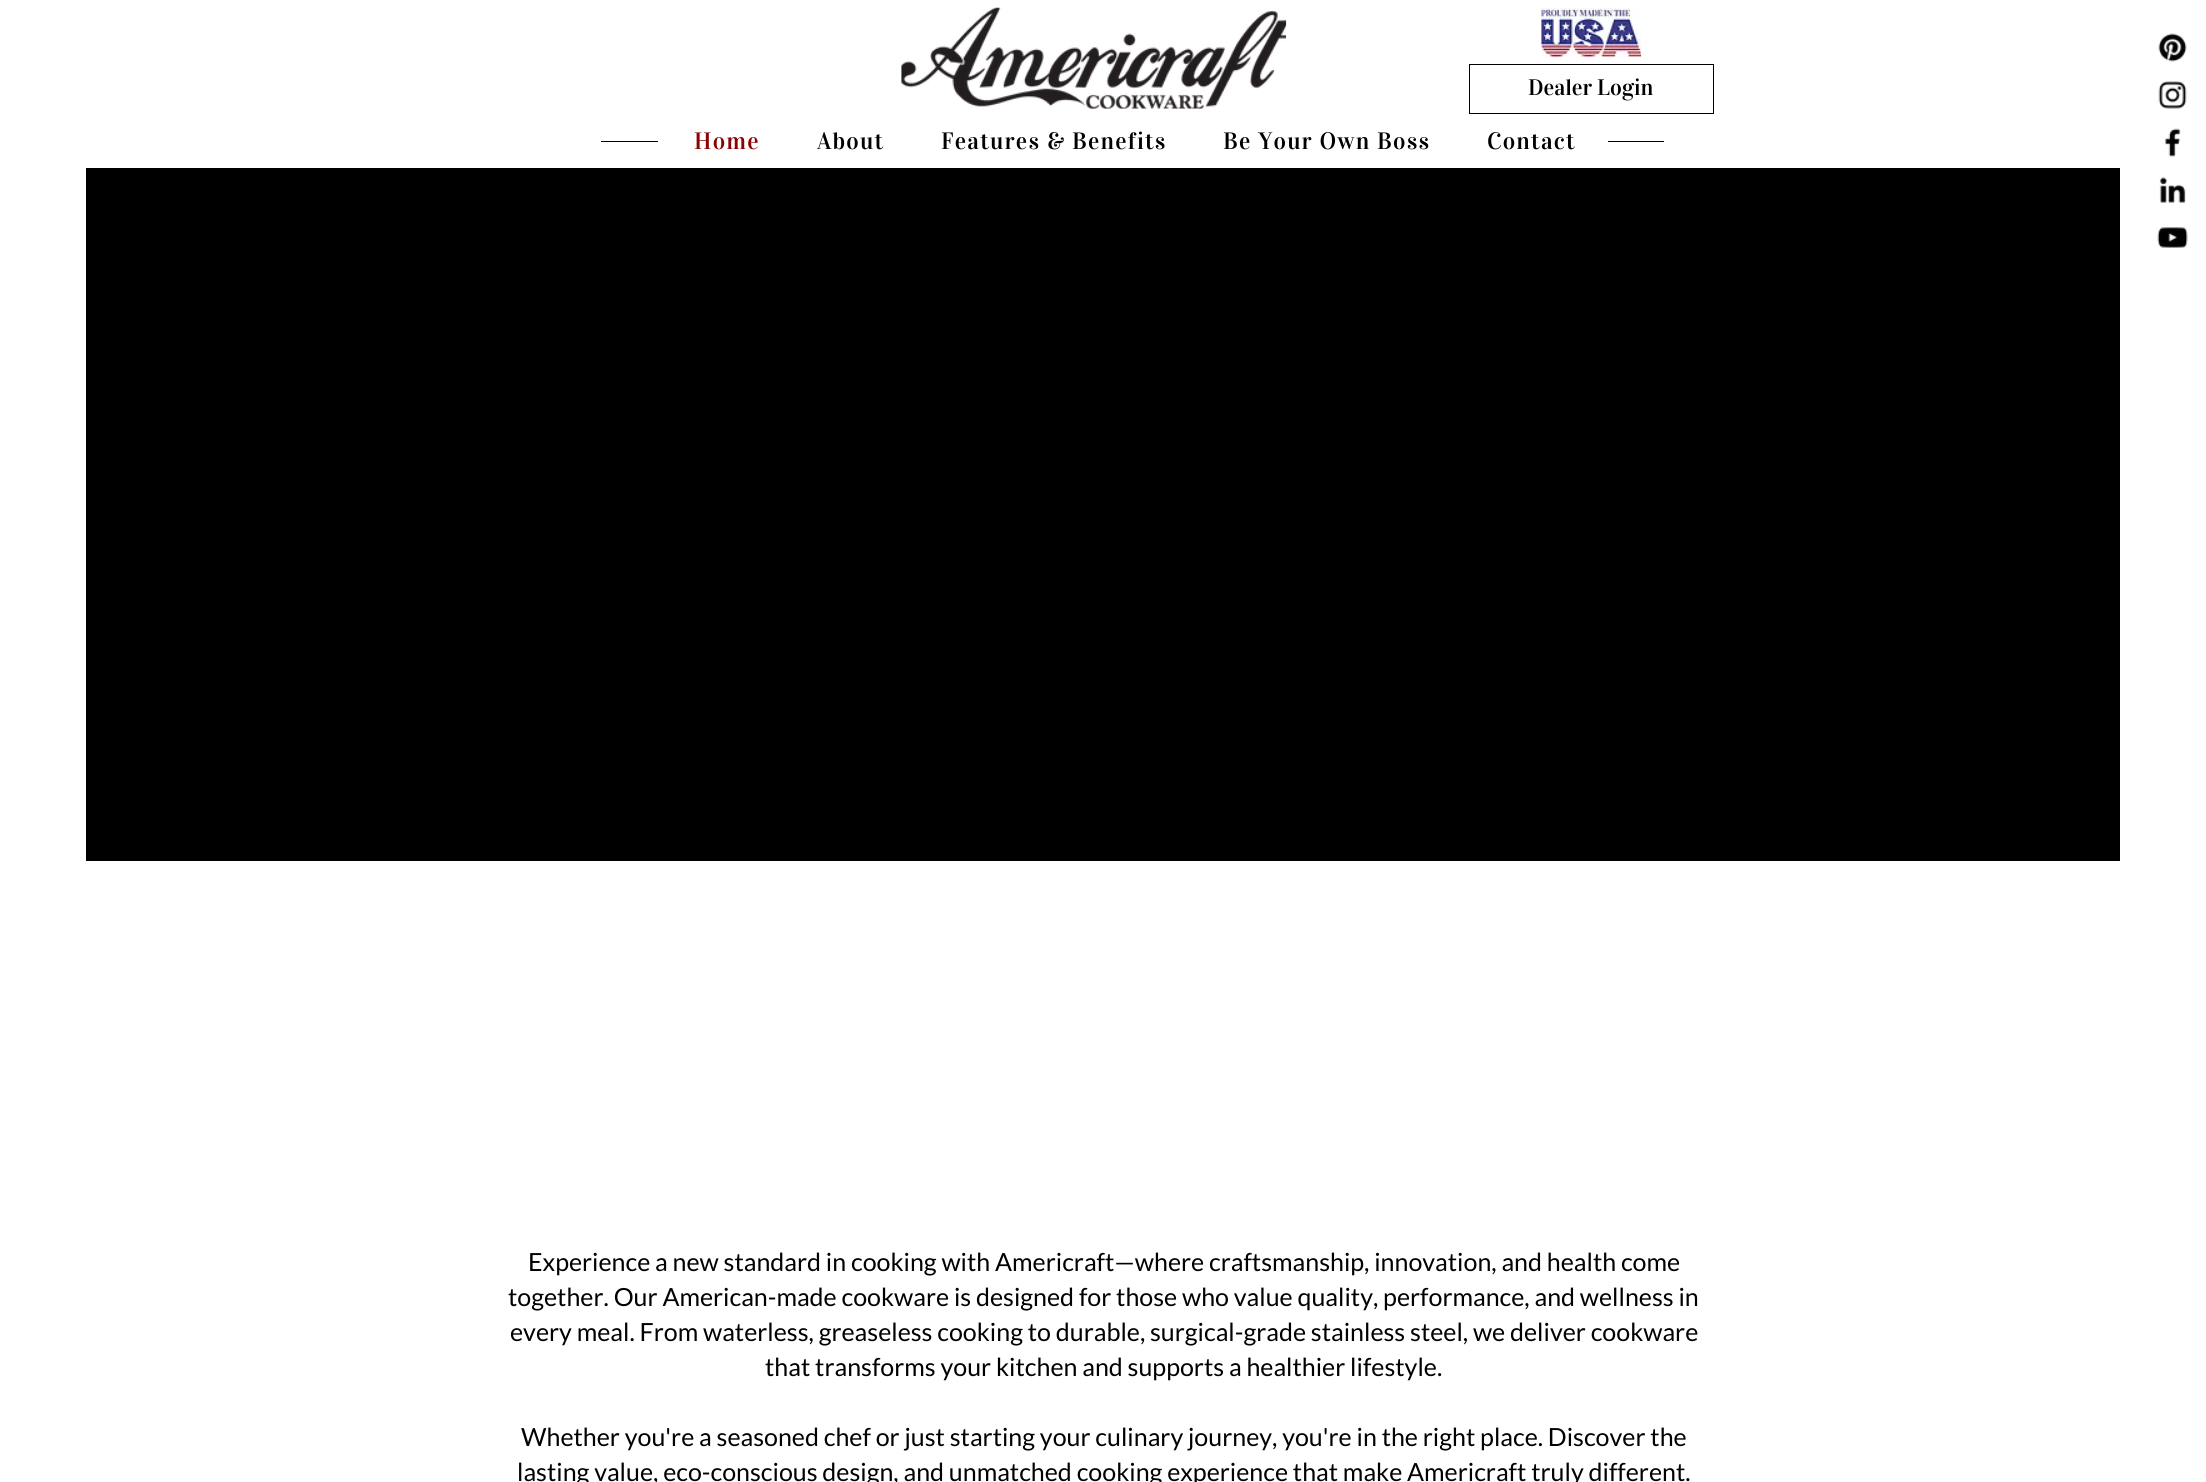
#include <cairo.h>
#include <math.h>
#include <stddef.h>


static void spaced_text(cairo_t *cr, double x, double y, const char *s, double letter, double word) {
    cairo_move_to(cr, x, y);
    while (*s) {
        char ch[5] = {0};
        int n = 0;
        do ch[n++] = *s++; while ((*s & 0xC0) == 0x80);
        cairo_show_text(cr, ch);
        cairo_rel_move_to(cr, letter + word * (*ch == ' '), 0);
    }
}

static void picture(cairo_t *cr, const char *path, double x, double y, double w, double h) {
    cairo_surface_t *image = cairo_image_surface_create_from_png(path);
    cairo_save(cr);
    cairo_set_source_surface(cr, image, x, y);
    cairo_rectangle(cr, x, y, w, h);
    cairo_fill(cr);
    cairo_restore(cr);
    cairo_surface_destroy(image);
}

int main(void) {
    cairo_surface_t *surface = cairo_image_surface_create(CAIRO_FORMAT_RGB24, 2206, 1482);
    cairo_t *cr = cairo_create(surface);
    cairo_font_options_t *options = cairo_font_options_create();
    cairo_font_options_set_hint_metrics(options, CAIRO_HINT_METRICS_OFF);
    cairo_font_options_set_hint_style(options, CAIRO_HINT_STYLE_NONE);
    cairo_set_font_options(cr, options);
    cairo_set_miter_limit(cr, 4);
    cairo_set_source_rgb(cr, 1, 1, 1);
    cairo_paint(cr);
    picture(cr, "img1.png", 901, 7, 386, 102);
    picture(cr, "img2.png", 1541, 8, 101, 50);
    cairo_rectangle(cr, 1469.5, 64.5, 244, 49);
    cairo_set_source_rgb(cr, 0, 0, 0);
    cairo_set_line_width(cr, 1);
    cairo_stroke(cr);
    cairo_select_font_face(cr, "Vidaloka", CAIRO_FONT_SLANT_NORMAL, CAIRO_FONT_WEIGHT_NORMAL);
    cairo_set_font_size(cr, 22.5);
    cairo_move_to(cr, 1528, 95);
    cairo_show_text(cr, "Dealer Login");
    cairo_rectangle(cr, 601, 141, 57, 1);
    cairo_fill(cr);
    cairo_set_font_size(cr, 23.75);
    cairo_set_source_rgb(cr, 0.545, 0, 0);
    spaced_text(cr, 694, 149, "Home", 1.2, 0);
    cairo_set_source_rgb(cr, 0, 0, 0);
    spaced_text(cr, 817, 149, "About", 1.2, 0);
    spaced_text(cr, 941, 149, "Features & Benefits", 1.2, 0);
    spaced_text(cr, 1223, 149, "Be Your Own Boss", 1.2, 0);
    spaced_text(cr, 1487, 149, "Contact", 1.2, 0);
    cairo_rectangle(cr, 1608, 141, 56, 1);
    cairo_fill(cr);
    picture(cr, "img3.png", 2158, 33, 29, 29);
    picture(cr, "img4.png", 2158, 81, 29, 28);
    picture(cr, "img5.png", 2164, 128, 17, 29);
    picture(cr, "img6.png", 2159, 177, 27, 26);
    picture(cr, "img7.png", 2157, 227, 31, 21);
    cairo_rectangle(cr, 86, 168, 2034, 693);
    cairo_fill(cr);
    cairo_select_font_face(cr, "Lato", CAIRO_FONT_SLANT_NORMAL, CAIRO_FONT_WEIGHT_NORMAL);
    cairo_set_font_size(cr, 25);
    cairo_move_to(cr, 528, 1271);
    cairo_show_text(cr, "Experience a new standard in cooking with Americraft—where craftsmanship, innovation, and health come");
    cairo_move_to(cr, 508, 1306);
    cairo_show_text(cr, "together. Our American-made cookware is designed for those who value quality, performance, and wellness in");
    cairo_move_to(cr, 510, 1341);
    cairo_show_text(cr, "every meal. From waterless, greaseless cooking to durable, surgical-grade stainless steel, we deliver cookware");
    cairo_move_to(cr, 765, 1376);
    cairo_show_text(cr, "that transforms your kitchen and supports a healthier lifestyle.");
    cairo_move_to(cr, 521, 1446);
    cairo_show_text(cr, "Whether you're a seasoned chef or just starting your culinary journey, you're in the right place. Discover the");
    cairo_move_to(cr, 517, 1481);
    cairo_show_text(cr, "lasting value, eco-conscious design, and unmatched cooking experience that make Americraft truly different.");
    cairo_surface_write_to_png(surface, "page.png");
    cairo_font_options_destroy(options);
    cairo_destroy(cr);
    cairo_surface_destroy(surface);
    return 0;
}
